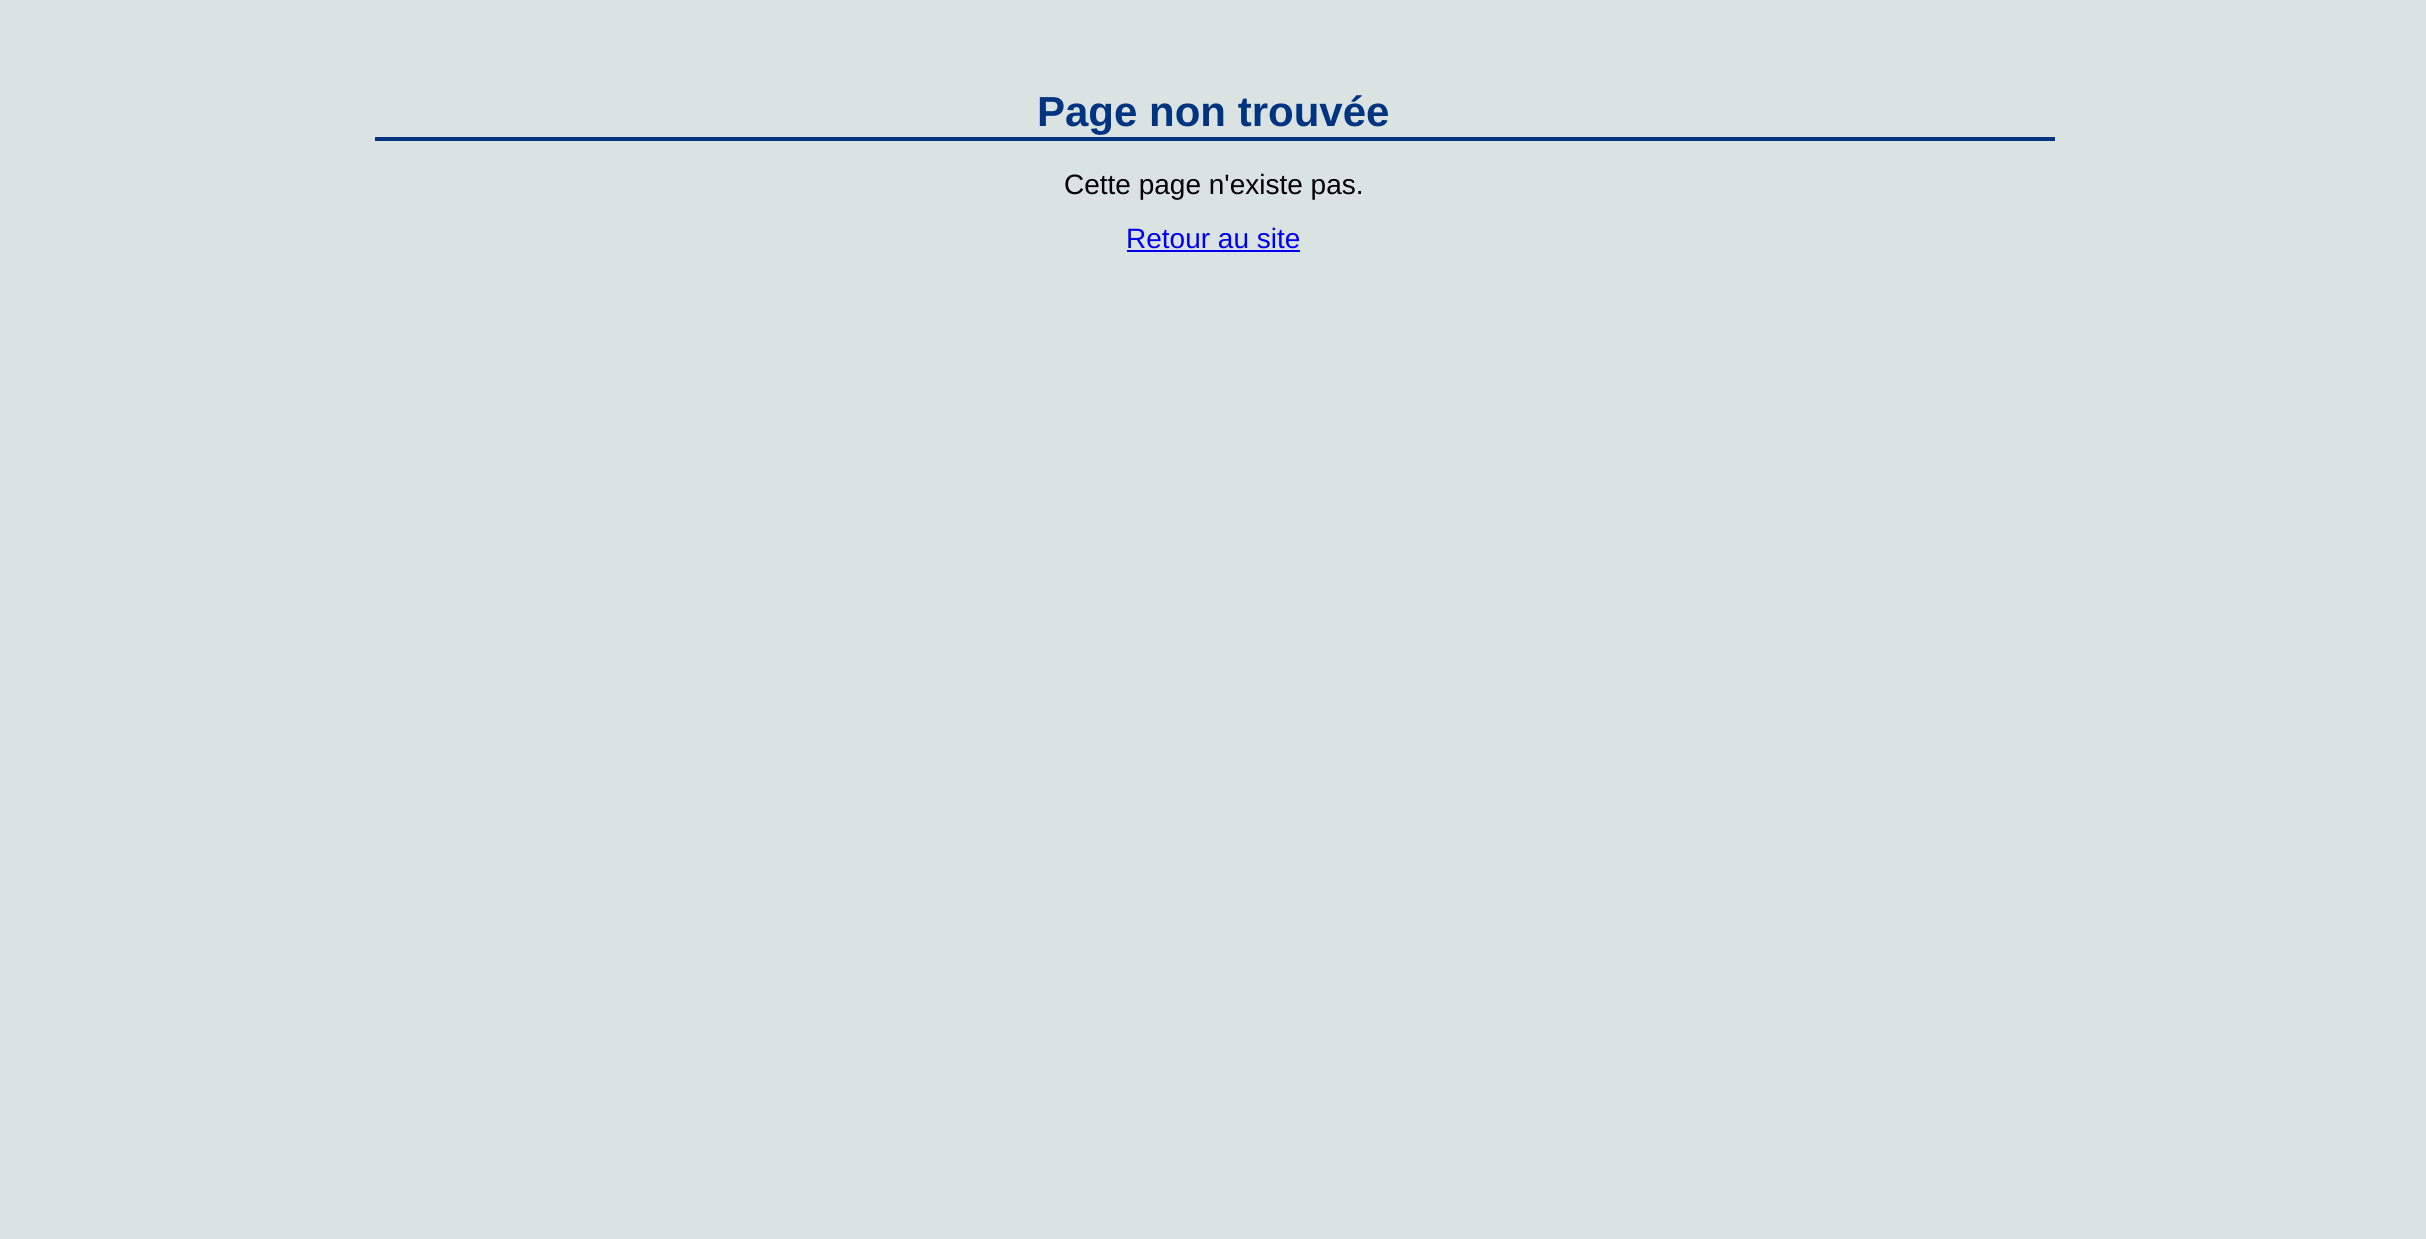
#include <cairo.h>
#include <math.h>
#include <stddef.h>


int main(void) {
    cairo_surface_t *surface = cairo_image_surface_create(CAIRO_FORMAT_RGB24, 2426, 1239);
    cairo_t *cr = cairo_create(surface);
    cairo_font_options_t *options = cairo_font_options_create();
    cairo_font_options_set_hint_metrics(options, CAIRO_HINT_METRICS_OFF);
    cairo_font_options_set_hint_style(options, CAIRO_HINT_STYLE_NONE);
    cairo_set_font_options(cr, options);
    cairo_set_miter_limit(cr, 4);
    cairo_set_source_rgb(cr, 0.859, 0.89, 0.886);
    cairo_paint(cr);
    cairo_set_source_rgb(cr, 0, 0.2, 0.502);
    cairo_rectangle(cr, 375, 137, 1680, 4);
    cairo_fill(cr);
    cairo_select_font_face(cr, "Liberation Sans", CAIRO_FONT_SLANT_NORMAL, CAIRO_FONT_WEIGHT_BOLD);
    cairo_set_font_size(cr, 42);
    cairo_move_to(cr, 1037, 126);
    cairo_show_text(cr, "Page non trouvée");
    cairo_select_font_face(cr, "Liberation Sans", CAIRO_FONT_SLANT_NORMAL, CAIRO_FONT_WEIGHT_NORMAL);
    cairo_set_font_size(cr, 28);
    cairo_set_source_rgb(cr, 0, 0, 0);
    cairo_move_to(cr, 1064, 194);
    cairo_show_text(cr, "Cette page n'existe pas.");
    cairo_set_source_rgb(cr, 0, 0, 0.933);
    cairo_move_to(cr, 1126, 248);
    cairo_show_text(cr, "Retour au site");
    cairo_rectangle(cr, 1127, 250, 173, 2);
    cairo_fill(cr);
    cairo_surface_write_to_png(surface, "page.png");
    cairo_font_options_destroy(options);
    cairo_destroy(cr);
    cairo_surface_destroy(surface);
    return 0;
}
